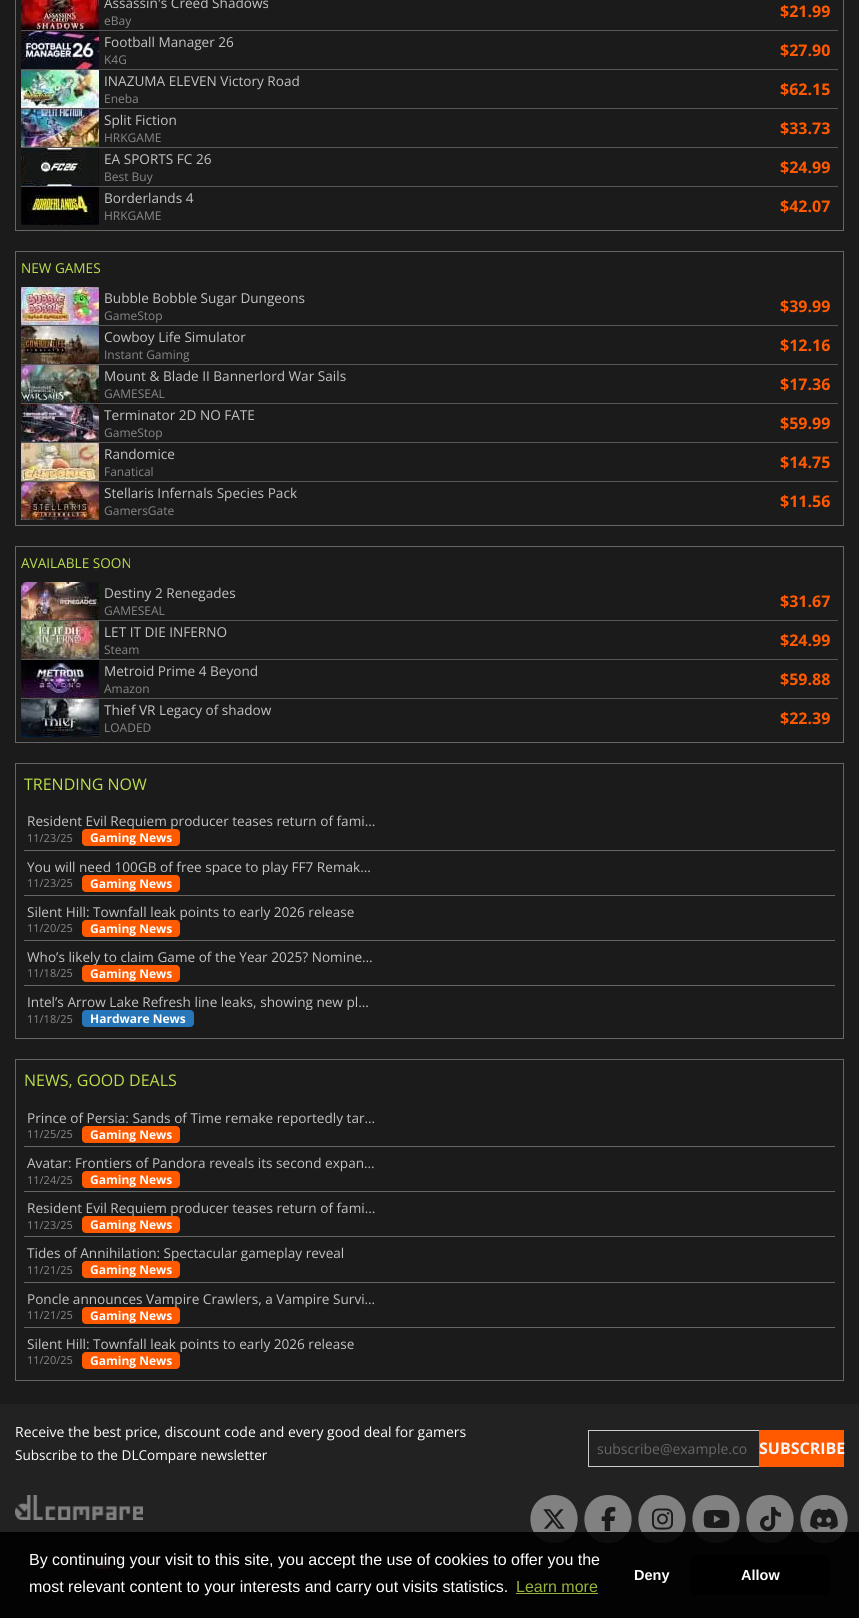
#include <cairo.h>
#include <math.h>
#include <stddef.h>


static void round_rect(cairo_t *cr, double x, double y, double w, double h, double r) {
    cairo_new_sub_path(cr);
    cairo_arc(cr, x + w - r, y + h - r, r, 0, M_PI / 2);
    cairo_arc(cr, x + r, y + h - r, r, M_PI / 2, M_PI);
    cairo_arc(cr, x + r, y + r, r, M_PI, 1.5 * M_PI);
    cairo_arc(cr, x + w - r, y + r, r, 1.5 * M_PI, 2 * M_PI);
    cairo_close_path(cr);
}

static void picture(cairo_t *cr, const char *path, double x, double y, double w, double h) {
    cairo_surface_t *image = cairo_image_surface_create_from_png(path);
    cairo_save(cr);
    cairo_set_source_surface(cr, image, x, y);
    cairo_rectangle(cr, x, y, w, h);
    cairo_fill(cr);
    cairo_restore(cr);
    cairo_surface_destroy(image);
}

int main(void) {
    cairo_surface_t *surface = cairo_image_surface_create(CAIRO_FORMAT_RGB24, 859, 1618);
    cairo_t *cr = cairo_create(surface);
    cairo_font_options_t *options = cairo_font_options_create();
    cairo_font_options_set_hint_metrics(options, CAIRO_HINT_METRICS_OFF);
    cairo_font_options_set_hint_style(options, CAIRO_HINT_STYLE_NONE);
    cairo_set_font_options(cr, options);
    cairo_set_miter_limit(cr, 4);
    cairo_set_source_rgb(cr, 0.106, 0.106, 0.106);
    cairo_paint(cr);
    cairo_rectangle(cr, 15.5, -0.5, 828, 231);
    cairo_set_source_rgb(cr, 0.4, 0.4, 0.4);
    cairo_set_line_width(cr, 1);
    cairo_stroke(cr);
    cairo_set_source_rgb(cr, 0.337, 0.337, 0.337);
    cairo_rectangle(cr, 21, 30, 817, 1);
    cairo_fill(cr);
    picture(cr, "img1.png", 21, 0, 78, 30);
    cairo_select_font_face(cr, "Open Sans", CAIRO_FONT_SLANT_NORMAL, CAIRO_FONT_WEIGHT_NORMAL);
    cairo_set_font_size(cr, 13.6);
    cairo_set_source_rgb(cr, 0.769, 0.769, 0.769);
    cairo_move_to(cr, 104, 8);
    cairo_show_text(cr, "Assassin's Creed Shadows");
    cairo_set_font_size(cr, 12);
    cairo_set_source_rgb(cr, 0.533, 0.533, 0.533);
    cairo_move_to(cr, 104, 25);
    cairo_show_text(cr, "eBay");
    cairo_select_font_face(cr, "Open Sans", CAIRO_FONT_SLANT_NORMAL, CAIRO_FONT_WEIGHT_BOLD);
    cairo_set_font_size(cr, 16);
    cairo_set_source_rgb(cr, 1, 0.353, 0);
    cairo_move_to(cr, 780, 17);
    cairo_show_text(cr, "$21.99");
    cairo_set_source_rgb(cr, 0.337, 0.337, 0.337);
    cairo_rectangle(cr, 21, 69, 817, 1);
    cairo_fill(cr);
    picture(cr, "img2.png", 21, 31, 78, 38);
    cairo_select_font_face(cr, "Open Sans", CAIRO_FONT_SLANT_NORMAL, CAIRO_FONT_WEIGHT_NORMAL);
    cairo_set_font_size(cr, 13.6);
    cairo_set_source_rgb(cr, 0.769, 0.769, 0.769);
    cairo_move_to(cr, 104, 47);
    cairo_show_text(cr, "Football Manager 26");
    cairo_set_font_size(cr, 12);
    cairo_set_source_rgb(cr, 0.533, 0.533, 0.533);
    cairo_move_to(cr, 104, 64);
    cairo_show_text(cr, "K4G");
    cairo_select_font_face(cr, "Open Sans", CAIRO_FONT_SLANT_NORMAL, CAIRO_FONT_WEIGHT_BOLD);
    cairo_set_font_size(cr, 16);
    cairo_set_source_rgb(cr, 1, 0.353, 0);
    cairo_move_to(cr, 780, 56);
    cairo_show_text(cr, "$27.90");
    cairo_set_source_rgb(cr, 0.337, 0.337, 0.337);
    cairo_rectangle(cr, 21, 108, 817, 1);
    cairo_fill(cr);
    picture(cr, "img3.png", 21, 70, 78, 38);
    cairo_select_font_face(cr, "Open Sans", CAIRO_FONT_SLANT_NORMAL, CAIRO_FONT_WEIGHT_NORMAL);
    cairo_set_font_size(cr, 13.6);
    cairo_set_source_rgb(cr, 0.769, 0.769, 0.769);
    cairo_move_to(cr, 104, 86);
    cairo_show_text(cr, "INAZUMA ELEVEN Victory Road");
    cairo_set_font_size(cr, 12);
    cairo_set_source_rgb(cr, 0.533, 0.533, 0.533);
    cairo_move_to(cr, 104, 103);
    cairo_show_text(cr, "Eneba");
    cairo_select_font_face(cr, "Open Sans", CAIRO_FONT_SLANT_NORMAL, CAIRO_FONT_WEIGHT_BOLD);
    cairo_set_font_size(cr, 16);
    cairo_set_source_rgb(cr, 1, 0.353, 0);
    cairo_move_to(cr, 780, 95);
    cairo_show_text(cr, "$62.15");
    cairo_set_source_rgb(cr, 0.337, 0.337, 0.337);
    cairo_rectangle(cr, 21, 147, 817, 1);
    cairo_fill(cr);
    picture(cr, "img4.png", 21, 109, 78, 38);
    cairo_select_font_face(cr, "Open Sans", CAIRO_FONT_SLANT_NORMAL, CAIRO_FONT_WEIGHT_NORMAL);
    cairo_set_font_size(cr, 13.6);
    cairo_set_source_rgb(cr, 0.769, 0.769, 0.769);
    cairo_move_to(cr, 104, 125);
    cairo_show_text(cr, "Split Fiction");
    cairo_set_font_size(cr, 12);
    cairo_set_source_rgb(cr, 0.533, 0.533, 0.533);
    cairo_move_to(cr, 104, 142);
    cairo_show_text(cr, "HRKGAME");
    cairo_select_font_face(cr, "Open Sans", CAIRO_FONT_SLANT_NORMAL, CAIRO_FONT_WEIGHT_BOLD);
    cairo_set_font_size(cr, 16);
    cairo_set_source_rgb(cr, 1, 0.353, 0);
    cairo_move_to(cr, 780, 134);
    cairo_show_text(cr, "$33.73");
    cairo_set_source_rgb(cr, 0.337, 0.337, 0.337);
    cairo_rectangle(cr, 21, 186, 817, 1);
    cairo_fill(cr);
    picture(cr, "img5.png", 21, 148, 78, 38);
    cairo_select_font_face(cr, "Open Sans", CAIRO_FONT_SLANT_NORMAL, CAIRO_FONT_WEIGHT_NORMAL);
    cairo_set_font_size(cr, 13.6);
    cairo_set_source_rgb(cr, 0.769, 0.769, 0.769);
    cairo_move_to(cr, 104, 164);
    cairo_show_text(cr, "EA SPORTS FC 26");
    cairo_set_font_size(cr, 12);
    cairo_set_source_rgb(cr, 0.533, 0.533, 0.533);
    cairo_move_to(cr, 104, 181);
    cairo_show_text(cr, "Best Buy");
    cairo_select_font_face(cr, "Open Sans", CAIRO_FONT_SLANT_NORMAL, CAIRO_FONT_WEIGHT_BOLD);
    cairo_set_font_size(cr, 16);
    cairo_set_source_rgb(cr, 1, 0.353, 0);
    cairo_move_to(cr, 780, 173);
    cairo_show_text(cr, "$24.99");
    picture(cr, "img6.png", 21, 187, 78, 38);
    cairo_select_font_face(cr, "Open Sans", CAIRO_FONT_SLANT_NORMAL, CAIRO_FONT_WEIGHT_NORMAL);
    cairo_set_font_size(cr, 13.6);
    cairo_set_source_rgb(cr, 0.769, 0.769, 0.769);
    cairo_move_to(cr, 104, 203);
    cairo_show_text(cr, "Borderlands 4");
    cairo_set_font_size(cr, 12);
    cairo_set_source_rgb(cr, 0.533, 0.533, 0.533);
    cairo_move_to(cr, 104, 220);
    cairo_show_text(cr, "HRKGAME");
    cairo_select_font_face(cr, "Open Sans", CAIRO_FONT_SLANT_NORMAL, CAIRO_FONT_WEIGHT_BOLD);
    cairo_set_font_size(cr, 16);
    cairo_set_source_rgb(cr, 1, 0.353, 0);
    cairo_move_to(cr, 780, 212);
    cairo_show_text(cr, "$42.07");
    cairo_rectangle(cr, 15.5, 251.5, 828, 274);
    cairo_set_source_rgb(cr, 0.4, 0.4, 0.4);
    cairo_stroke(cr);
    cairo_select_font_face(cr, "Open Sans", CAIRO_FONT_SLANT_NORMAL, CAIRO_FONT_WEIGHT_NORMAL);
    cairo_set_font_size(cr, 13.6);
    cairo_set_source_rgb(cr, 0.733, 0.875, 0.302);
    cairo_move_to(cr, 21, 273);
    cairo_show_text(cr, "NEW GAMES");
    cairo_set_source_rgb(cr, 0.337, 0.337, 0.337);
    cairo_rectangle(cr, 21, 325, 817, 1);
    cairo_fill(cr);
    picture(cr, "img7.png", 21, 287, 78, 38);
    cairo_set_source_rgb(cr, 0.769, 0.769, 0.769);
    cairo_move_to(cr, 104, 303);
    cairo_show_text(cr, "Bubble Bobble Sugar Dungeons");
    cairo_set_font_size(cr, 12);
    cairo_set_source_rgb(cr, 0.533, 0.533, 0.533);
    cairo_move_to(cr, 104, 320);
    cairo_show_text(cr, "GameStop");
    cairo_select_font_face(cr, "Open Sans", CAIRO_FONT_SLANT_NORMAL, CAIRO_FONT_WEIGHT_BOLD);
    cairo_set_font_size(cr, 16);
    cairo_set_source_rgb(cr, 1, 0.353, 0);
    cairo_move_to(cr, 780, 312);
    cairo_show_text(cr, "$39.99");
    cairo_set_source_rgb(cr, 0.337, 0.337, 0.337);
    cairo_rectangle(cr, 21, 364, 817, 1);
    cairo_fill(cr);
    picture(cr, "img8.png", 21, 326, 78, 38);
    cairo_select_font_face(cr, "Open Sans", CAIRO_FONT_SLANT_NORMAL, CAIRO_FONT_WEIGHT_NORMAL);
    cairo_set_font_size(cr, 13.6);
    cairo_set_source_rgb(cr, 0.769, 0.769, 0.769);
    cairo_move_to(cr, 104, 342);
    cairo_show_text(cr, "Cowboy Life Simulator");
    cairo_set_font_size(cr, 12);
    cairo_set_source_rgb(cr, 0.533, 0.533, 0.533);
    cairo_move_to(cr, 104, 359);
    cairo_show_text(cr, "Instant Gaming");
    cairo_select_font_face(cr, "Open Sans", CAIRO_FONT_SLANT_NORMAL, CAIRO_FONT_WEIGHT_BOLD);
    cairo_set_font_size(cr, 16);
    cairo_set_source_rgb(cr, 1, 0.353, 0);
    cairo_move_to(cr, 780, 351);
    cairo_show_text(cr, "$12.16");
    cairo_set_source_rgb(cr, 0.337, 0.337, 0.337);
    cairo_rectangle(cr, 21, 403, 817, 1);
    cairo_fill(cr);
    picture(cr, "img9.png", 21, 365, 78, 38);
    cairo_select_font_face(cr, "Open Sans", CAIRO_FONT_SLANT_NORMAL, CAIRO_FONT_WEIGHT_NORMAL);
    cairo_set_font_size(cr, 13.6);
    cairo_set_source_rgb(cr, 0.769, 0.769, 0.769);
    cairo_move_to(cr, 104, 381);
    cairo_show_text(cr, "Mount & Blade II Bannerlord War Sails");
    cairo_set_font_size(cr, 12);
    cairo_set_source_rgb(cr, 0.533, 0.533, 0.533);
    cairo_move_to(cr, 104, 398);
    cairo_show_text(cr, "GAMESEAL");
    cairo_select_font_face(cr, "Open Sans", CAIRO_FONT_SLANT_NORMAL, CAIRO_FONT_WEIGHT_BOLD);
    cairo_set_font_size(cr, 16);
    cairo_set_source_rgb(cr, 1, 0.353, 0);
    cairo_move_to(cr, 780, 390);
    cairo_show_text(cr, "$17.36");
    cairo_set_source_rgb(cr, 0.337, 0.337, 0.337);
    cairo_rectangle(cr, 21, 442, 817, 1);
    cairo_fill(cr);
    picture(cr, "img10.png", 21, 404, 78, 38);
    cairo_select_font_face(cr, "Open Sans", CAIRO_FONT_SLANT_NORMAL, CAIRO_FONT_WEIGHT_NORMAL);
    cairo_set_font_size(cr, 13.6);
    cairo_set_source_rgb(cr, 0.769, 0.769, 0.769);
    cairo_move_to(cr, 104, 420);
    cairo_show_text(cr, "Terminator 2D NO FATE");
    cairo_set_font_size(cr, 12);
    cairo_set_source_rgb(cr, 0.533, 0.533, 0.533);
    cairo_move_to(cr, 104, 437);
    cairo_show_text(cr, "GameStop");
    cairo_select_font_face(cr, "Open Sans", CAIRO_FONT_SLANT_NORMAL, CAIRO_FONT_WEIGHT_BOLD);
    cairo_set_font_size(cr, 16);
    cairo_set_source_rgb(cr, 1, 0.353, 0);
    cairo_move_to(cr, 780, 429);
    cairo_show_text(cr, "$59.99");
    cairo_set_source_rgb(cr, 0.337, 0.337, 0.337);
    cairo_rectangle(cr, 21, 481, 817, 1);
    cairo_fill(cr);
    picture(cr, "img11.png", 21, 443, 78, 38);
    cairo_select_font_face(cr, "Open Sans", CAIRO_FONT_SLANT_NORMAL, CAIRO_FONT_WEIGHT_NORMAL);
    cairo_set_font_size(cr, 13.6);
    cairo_set_source_rgb(cr, 0.769, 0.769, 0.769);
    cairo_move_to(cr, 104, 459);
    cairo_show_text(cr, "Randomice");
    cairo_set_font_size(cr, 12);
    cairo_set_source_rgb(cr, 0.533, 0.533, 0.533);
    cairo_move_to(cr, 104, 476);
    cairo_show_text(cr, "Fanatical");
    cairo_select_font_face(cr, "Open Sans", CAIRO_FONT_SLANT_NORMAL, CAIRO_FONT_WEIGHT_BOLD);
    cairo_set_font_size(cr, 16);
    cairo_set_source_rgb(cr, 1, 0.353, 0);
    cairo_move_to(cr, 780, 468);
    cairo_show_text(cr, "$14.75");
    picture(cr, "img12.png", 21, 482, 78, 38);
    cairo_select_font_face(cr, "Open Sans", CAIRO_FONT_SLANT_NORMAL, CAIRO_FONT_WEIGHT_NORMAL);
    cairo_set_font_size(cr, 13.6);
    cairo_set_source_rgb(cr, 0.769, 0.769, 0.769);
    cairo_move_to(cr, 104, 498);
    cairo_show_text(cr, "Stellaris Infernals Species Pack");
    cairo_set_font_size(cr, 12);
    cairo_set_source_rgb(cr, 0.533, 0.533, 0.533);
    cairo_move_to(cr, 104, 515);
    cairo_show_text(cr, "GamersGate");
    cairo_select_font_face(cr, "Open Sans", CAIRO_FONT_SLANT_NORMAL, CAIRO_FONT_WEIGHT_BOLD);
    cairo_set_font_size(cr, 16);
    cairo_set_source_rgb(cr, 1, 0.353, 0);
    cairo_move_to(cr, 780, 507);
    cairo_show_text(cr, "$11.56");
    cairo_rectangle(cr, 15.5, 546.5, 828, 196);
    cairo_set_source_rgb(cr, 0.4, 0.4, 0.4);
    cairo_stroke(cr);
    cairo_select_font_face(cr, "Open Sans", CAIRO_FONT_SLANT_NORMAL, CAIRO_FONT_WEIGHT_NORMAL);
    cairo_set_font_size(cr, 13.6);
    cairo_set_source_rgb(cr, 0.733, 0.875, 0.302);
    cairo_move_to(cr, 21, 568);
    cairo_show_text(cr, "AVAILABLE SOON");
    cairo_set_source_rgb(cr, 0.337, 0.337, 0.337);
    cairo_rectangle(cr, 21, 620, 817, 1);
    cairo_fill(cr);
    picture(cr, "img13.png", 21, 582, 78, 38);
    cairo_set_source_rgb(cr, 0.769, 0.769, 0.769);
    cairo_move_to(cr, 104, 598);
    cairo_show_text(cr, "Destiny 2 Renegades");
    cairo_set_font_size(cr, 12);
    cairo_set_source_rgb(cr, 0.533, 0.533, 0.533);
    cairo_move_to(cr, 104, 615);
    cairo_show_text(cr, "GAMESEAL");
    cairo_select_font_face(cr, "Open Sans", CAIRO_FONT_SLANT_NORMAL, CAIRO_FONT_WEIGHT_BOLD);
    cairo_set_font_size(cr, 16);
    cairo_set_source_rgb(cr, 1, 0.353, 0);
    cairo_move_to(cr, 780, 607);
    cairo_show_text(cr, "$31.67");
    cairo_set_source_rgb(cr, 0.337, 0.337, 0.337);
    cairo_rectangle(cr, 21, 659, 817, 1);
    cairo_fill(cr);
    picture(cr, "img14.png", 21, 621, 78, 38);
    cairo_select_font_face(cr, "Open Sans", CAIRO_FONT_SLANT_NORMAL, CAIRO_FONT_WEIGHT_NORMAL);
    cairo_set_font_size(cr, 13.6);
    cairo_set_source_rgb(cr, 0.769, 0.769, 0.769);
    cairo_move_to(cr, 104, 637);
    cairo_show_text(cr, "LET IT DIE INFERNO");
    cairo_set_font_size(cr, 12);
    cairo_set_source_rgb(cr, 0.533, 0.533, 0.533);
    cairo_move_to(cr, 104, 654);
    cairo_show_text(cr, "Steam");
    cairo_select_font_face(cr, "Open Sans", CAIRO_FONT_SLANT_NORMAL, CAIRO_FONT_WEIGHT_BOLD);
    cairo_set_font_size(cr, 16);
    cairo_set_source_rgb(cr, 1, 0.353, 0);
    cairo_move_to(cr, 780, 646);
    cairo_show_text(cr, "$24.99");
    cairo_set_source_rgb(cr, 0.337, 0.337, 0.337);
    cairo_rectangle(cr, 21, 698, 817, 1);
    cairo_fill(cr);
    picture(cr, "img15.png", 21, 660, 78, 38);
    cairo_select_font_face(cr, "Open Sans", CAIRO_FONT_SLANT_NORMAL, CAIRO_FONT_WEIGHT_NORMAL);
    cairo_set_font_size(cr, 13.6);
    cairo_set_source_rgb(cr, 0.769, 0.769, 0.769);
    cairo_move_to(cr, 104, 676);
    cairo_show_text(cr, "Metroid Prime 4 Beyond");
    cairo_set_font_size(cr, 12);
    cairo_set_source_rgb(cr, 0.533, 0.533, 0.533);
    cairo_move_to(cr, 104, 693);
    cairo_show_text(cr, "Amazon");
    cairo_select_font_face(cr, "Open Sans", CAIRO_FONT_SLANT_NORMAL, CAIRO_FONT_WEIGHT_BOLD);
    cairo_set_font_size(cr, 16);
    cairo_set_source_rgb(cr, 1, 0.353, 0);
    cairo_move_to(cr, 780, 685);
    cairo_show_text(cr, "$59.88");
    picture(cr, "img16.png", 21, 699, 78, 38);
    cairo_select_font_face(cr, "Open Sans", CAIRO_FONT_SLANT_NORMAL, CAIRO_FONT_WEIGHT_NORMAL);
    cairo_set_font_size(cr, 13.6);
    cairo_set_source_rgb(cr, 0.769, 0.769, 0.769);
    cairo_move_to(cr, 104, 715);
    cairo_show_text(cr, "Thief VR Legacy of shadow");
    cairo_set_font_size(cr, 12);
    cairo_set_source_rgb(cr, 0.533, 0.533, 0.533);
    cairo_move_to(cr, 104, 732);
    cairo_show_text(cr, "LOADED");
    cairo_select_font_face(cr, "Open Sans", CAIRO_FONT_SLANT_NORMAL, CAIRO_FONT_WEIGHT_BOLD);
    cairo_set_font_size(cr, 16);
    cairo_set_source_rgb(cr, 1, 0.353, 0);
    cairo_move_to(cr, 780, 724);
    cairo_show_text(cr, "$22.39");
    cairo_set_source_rgb(cr, 0.4, 0.4, 0.4);
    cairo_rectangle(cr, 15, 763, 829, 276);
    cairo_fill(cr);
    cairo_set_source_rgb(cr, 0.106, 0.106, 0.106);
    cairo_rectangle(cr, 16, 764, 827, 274);
    cairo_fill(cr);
    cairo_select_font_face(cr, "Open Sans", CAIRO_FONT_SLANT_NORMAL, CAIRO_FONT_WEIGHT_NORMAL);
    cairo_set_source_rgb(cr, 0.733, 0.875, 0.302);
    cairo_move_to(cr, 24, 790);
    cairo_show_text(cr, "TRENDING NOW");
    cairo_set_source_rgb(cr, 0.4, 0.4, 0.4);
    cairo_rectangle(cr, 24, 850, 811, 1);
    cairo_fill(cr);
    cairo_set_font_size(cr, 13.6);
    cairo_set_source_rgb(cr, 0.769, 0.769, 0.769);
    cairo_move_to(cr, 27, 826);
    cairo_show_text(cr, "Resident Evil Requiem producer teases return of fami…");
    cairo_set_font_size(cr, 11);
    cairo_set_source_rgb(cr, 0.533, 0.533, 0.533);
    cairo_move_to(cr, 27, 842);
    cairo_show_text(cr, "11/23/25");
    cairo_set_source_rgb(cr, 1, 0.353, 0);
    round_rect(cr, 82, 829, 98, 17, 4);
    cairo_fill(cr);
    cairo_select_font_face(cr, "Open Sans", CAIRO_FONT_SLANT_NORMAL, CAIRO_FONT_WEIGHT_BOLD);
    cairo_set_font_size(cr, 12);
    cairo_set_source_rgb(cr, 1, 1, 1);
    cairo_move_to(cr, 90, 842);
    cairo_show_text(cr, "Gaming News");
    cairo_set_source_rgb(cr, 0.4, 0.4, 0.4);
    cairo_rectangle(cr, 24, 895, 811, 1);
    cairo_fill(cr);
    cairo_save(cr);
    cairo_rectangle(cr, 27, 859, 350, 16);
    cairo_clip(cr);
    cairo_select_font_face(cr, "Open Sans", CAIRO_FONT_SLANT_NORMAL, CAIRO_FONT_WEIGHT_NORMAL);
    cairo_set_font_size(cr, 13.6);
    cairo_set_source_rgb(cr, 0.769, 0.769, 0.769);
    cairo_move_to(cr, 27, 872);
    cairo_show_text(cr, "You will need 100GB of free space to play FF7 Remak…");
    cairo_restore(cr);
    cairo_select_font_face(cr, "Open Sans", CAIRO_FONT_SLANT_NORMAL, CAIRO_FONT_WEIGHT_NORMAL);
    cairo_set_font_size(cr, 11);
    cairo_set_source_rgb(cr, 0.533, 0.533, 0.533);
    cairo_move_to(cr, 27, 887);
    cairo_show_text(cr, "11/23/25");
    cairo_set_source_rgb(cr, 1, 0.353, 0);
    round_rect(cr, 82, 875, 98, 17, 4);
    cairo_fill(cr);
    cairo_select_font_face(cr, "Open Sans", CAIRO_FONT_SLANT_NORMAL, CAIRO_FONT_WEIGHT_BOLD);
    cairo_set_font_size(cr, 12);
    cairo_set_source_rgb(cr, 1, 1, 1);
    cairo_move_to(cr, 90, 888);
    cairo_show_text(cr, "Gaming News");
    cairo_set_source_rgb(cr, 0.4, 0.4, 0.4);
    cairo_rectangle(cr, 24, 940, 811, 1);
    cairo_fill(cr);
    cairo_save(cr);
    cairo_rectangle(cr, 27, 904, 350, 16);
    cairo_clip(cr);
    cairo_select_font_face(cr, "Open Sans", CAIRO_FONT_SLANT_NORMAL, CAIRO_FONT_WEIGHT_NORMAL);
    cairo_set_font_size(cr, 13.6);
    cairo_set_source_rgb(cr, 0.769, 0.769, 0.769);
    cairo_move_to(cr, 27, 917);
    cairo_show_text(cr, "Silent Hill: Townfall leak points to early 2026 release");
    cairo_restore(cr);
    cairo_select_font_face(cr, "Open Sans", CAIRO_FONT_SLANT_NORMAL, CAIRO_FONT_WEIGHT_NORMAL);
    cairo_set_font_size(cr, 11);
    cairo_set_source_rgb(cr, 0.533, 0.533, 0.533);
    cairo_move_to(cr, 27, 932);
    cairo_show_text(cr, "11/20/25");
    cairo_set_source_rgb(cr, 1, 0.353, 0);
    round_rect(cr, 82, 920, 98, 17, 4);
    cairo_fill(cr);
    cairo_select_font_face(cr, "Open Sans", CAIRO_FONT_SLANT_NORMAL, CAIRO_FONT_WEIGHT_BOLD);
    cairo_set_font_size(cr, 12);
    cairo_set_source_rgb(cr, 1, 1, 1);
    cairo_move_to(cr, 90, 933);
    cairo_show_text(cr, "Gaming News");
    cairo_set_source_rgb(cr, 0.4, 0.4, 0.4);
    cairo_rectangle(cr, 24, 985, 811, 1);
    cairo_fill(cr);
    cairo_select_font_face(cr, "Open Sans", CAIRO_FONT_SLANT_NORMAL, CAIRO_FONT_WEIGHT_NORMAL);
    cairo_set_font_size(cr, 13.6);
    cairo_set_source_rgb(cr, 0.769, 0.769, 0.769);
    cairo_move_to(cr, 27, 962);
    cairo_show_text(cr, "Who’s likely to claim Game of the Year 2025? Nomine…");
    cairo_set_font_size(cr, 11);
    cairo_set_source_rgb(cr, 0.533, 0.533, 0.533);
    cairo_move_to(cr, 27, 977);
    cairo_show_text(cr, "11/18/25");
    cairo_set_source_rgb(cr, 1, 0.353, 0);
    round_rect(cr, 82, 965, 98, 17, 4);
    cairo_fill(cr);
    cairo_select_font_face(cr, "Open Sans", CAIRO_FONT_SLANT_NORMAL, CAIRO_FONT_WEIGHT_BOLD);
    cairo_set_font_size(cr, 12);
    cairo_set_source_rgb(cr, 1, 1, 1);
    cairo_move_to(cr, 90, 978);
    cairo_show_text(cr, "Gaming News");
    cairo_save(cr);
    cairo_rectangle(cr, 27, 994, 350, 16);
    cairo_clip(cr);
    cairo_select_font_face(cr, "Open Sans", CAIRO_FONT_SLANT_NORMAL, CAIRO_FONT_WEIGHT_NORMAL);
    cairo_set_font_size(cr, 13.6);
    cairo_set_source_rgb(cr, 0.769, 0.769, 0.769);
    cairo_move_to(cr, 27, 1007);
    cairo_show_text(cr, "Intel’s Arrow Lake Refresh line leaks, showing new pl…");
    cairo_restore(cr);
    cairo_select_font_face(cr, "Open Sans", CAIRO_FONT_SLANT_NORMAL, CAIRO_FONT_WEIGHT_NORMAL);
    cairo_set_font_size(cr, 11);
    cairo_set_source_rgb(cr, 0.533, 0.533, 0.533);
    cairo_move_to(cr, 27, 1023);
    cairo_show_text(cr, "11/18/25");
    cairo_set_source_rgb(cr, 0.149, 0.463, 0.725);
    round_rect(cr, 82, 1010, 112, 17, 4);
    cairo_fill(cr);
    cairo_select_font_face(cr, "Open Sans", CAIRO_FONT_SLANT_NORMAL, CAIRO_FONT_WEIGHT_BOLD);
    cairo_set_font_size(cr, 12);
    cairo_set_source_rgb(cr, 1, 1, 1);
    cairo_move_to(cr, 90, 1023);
    cairo_show_text(cr, "Hardware News");
    cairo_set_source_rgb(cr, 0.4, 0.4, 0.4);
    cairo_rectangle(cr, 15, 1059, 829, 322);
    cairo_fill(cr);
    cairo_set_source_rgb(cr, 0.106, 0.106, 0.106);
    cairo_rectangle(cr, 16, 1060, 827, 320);
    cairo_fill(cr);
    cairo_select_font_face(cr, "Open Sans", CAIRO_FONT_SLANT_NORMAL, CAIRO_FONT_WEIGHT_NORMAL);
    cairo_set_font_size(cr, 16);
    cairo_set_source_rgb(cr, 0.733, 0.875, 0.302);
    cairo_move_to(cr, 24, 1086);
    cairo_show_text(cr, "NEWS, GOOD DEALS");
    cairo_set_source_rgb(cr, 0.4, 0.4, 0.4);
    cairo_rectangle(cr, 24, 1146, 811, 1);
    cairo_fill(cr);
    cairo_save(cr);
    cairo_rectangle(cr, 27, 1110, 350, 16);
    cairo_clip(cr);
    cairo_set_font_size(cr, 13.6);
    cairo_set_source_rgb(cr, 0.769, 0.769, 0.769);
    cairo_move_to(cr, 27, 1123);
    cairo_show_text(cr, "Prince of Persia: Sands of Time remake reportedly tar…");
    cairo_restore(cr);
    cairo_set_font_size(cr, 11);
    cairo_set_source_rgb(cr, 0.533, 0.533, 0.533);
    cairo_move_to(cr, 27, 1138);
    cairo_show_text(cr, "11/25/25");
    cairo_set_source_rgb(cr, 1, 0.353, 0);
    round_rect(cr, 82, 1126, 98, 17, 4);
    cairo_fill(cr);
    cairo_select_font_face(cr, "Open Sans", CAIRO_FONT_SLANT_NORMAL, CAIRO_FONT_WEIGHT_BOLD);
    cairo_set_font_size(cr, 12);
    cairo_set_source_rgb(cr, 1, 1, 1);
    cairo_move_to(cr, 90, 1139);
    cairo_show_text(cr, "Gaming News");
    cairo_set_source_rgb(cr, 0.4, 0.4, 0.4);
    cairo_rectangle(cr, 24, 1191, 811, 1);
    cairo_fill(cr);
    cairo_select_font_face(cr, "Open Sans", CAIRO_FONT_SLANT_NORMAL, CAIRO_FONT_WEIGHT_NORMAL);
    cairo_set_font_size(cr, 13.6);
    cairo_set_source_rgb(cr, 0.769, 0.769, 0.769);
    cairo_move_to(cr, 27, 1168);
    cairo_show_text(cr, "Avatar: Frontiers of Pandora reveals its second expan…");
    cairo_set_font_size(cr, 11);
    cairo_set_source_rgb(cr, 0.533, 0.533, 0.533);
    cairo_move_to(cr, 27, 1184);
    cairo_show_text(cr, "11/24/25");
    cairo_set_source_rgb(cr, 1, 0.353, 0);
    round_rect(cr, 82, 1171, 98, 17, 4);
    cairo_fill(cr);
    cairo_select_font_face(cr, "Open Sans", CAIRO_FONT_SLANT_NORMAL, CAIRO_FONT_WEIGHT_BOLD);
    cairo_set_font_size(cr, 12);
    cairo_set_source_rgb(cr, 1, 1, 1);
    cairo_move_to(cr, 90, 1184);
    cairo_show_text(cr, "Gaming News");
    cairo_set_source_rgb(cr, 0.4, 0.4, 0.4);
    cairo_rectangle(cr, 24, 1236, 811, 1);
    cairo_fill(cr);
    cairo_select_font_face(cr, "Open Sans", CAIRO_FONT_SLANT_NORMAL, CAIRO_FONT_WEIGHT_NORMAL);
    cairo_set_font_size(cr, 13.6);
    cairo_set_source_rgb(cr, 0.769, 0.769, 0.769);
    cairo_move_to(cr, 27, 1213);
    cairo_show_text(cr, "Resident Evil Requiem producer teases return of fami…");
    cairo_set_font_size(cr, 11);
    cairo_set_source_rgb(cr, 0.533, 0.533, 0.533);
    cairo_move_to(cr, 27, 1229);
    cairo_show_text(cr, "11/23/25");
    cairo_set_source_rgb(cr, 1, 0.353, 0);
    round_rect(cr, 82, 1216, 98, 17, 4);
    cairo_fill(cr);
    cairo_select_font_face(cr, "Open Sans", CAIRO_FONT_SLANT_NORMAL, CAIRO_FONT_WEIGHT_BOLD);
    cairo_set_font_size(cr, 12);
    cairo_set_source_rgb(cr, 1, 1, 1);
    cairo_move_to(cr, 90, 1229);
    cairo_show_text(cr, "Gaming News");
    cairo_set_source_rgb(cr, 0.4, 0.4, 0.4);
    cairo_rectangle(cr, 24, 1282, 811, 1);
    cairo_fill(cr);
    cairo_save(cr);
    cairo_rectangle(cr, 27, 1245, 350, 16);
    cairo_clip(cr);
    cairo_select_font_face(cr, "Open Sans", CAIRO_FONT_SLANT_NORMAL, CAIRO_FONT_WEIGHT_NORMAL);
    cairo_set_font_size(cr, 13.6);
    cairo_set_source_rgb(cr, 0.769, 0.769, 0.769);
    cairo_move_to(cr, 27, 1258);
    cairo_show_text(cr, "Tides of Annihilation: Spectacular gameplay reveal");
    cairo_restore(cr);
    cairo_select_font_face(cr, "Open Sans", CAIRO_FONT_SLANT_NORMAL, CAIRO_FONT_WEIGHT_NORMAL);
    cairo_set_font_size(cr, 11);
    cairo_set_source_rgb(cr, 0.533, 0.533, 0.533);
    cairo_move_to(cr, 27, 1274);
    cairo_show_text(cr, "11/21/25");
    cairo_set_source_rgb(cr, 1, 0.353, 0);
    round_rect(cr, 82, 1261, 98, 17, 4);
    cairo_fill(cr);
    cairo_select_font_face(cr, "Open Sans", CAIRO_FONT_SLANT_NORMAL, CAIRO_FONT_WEIGHT_BOLD);
    cairo_set_font_size(cr, 12);
    cairo_set_source_rgb(cr, 1, 1, 1);
    cairo_move_to(cr, 90, 1274);
    cairo_show_text(cr, "Gaming News");
    cairo_set_source_rgb(cr, 0.4, 0.4, 0.4);
    cairo_rectangle(cr, 24, 1327, 811, 1);
    cairo_fill(cr);
    cairo_select_font_face(cr, "Open Sans", CAIRO_FONT_SLANT_NORMAL, CAIRO_FONT_WEIGHT_NORMAL);
    cairo_set_font_size(cr, 13.6);
    cairo_set_source_rgb(cr, 0.769, 0.769, 0.769);
    cairo_move_to(cr, 27, 1304);
    cairo_show_text(cr, "Poncle announces Vampire Crawlers, a Vampire Survi…");
    cairo_set_font_size(cr, 11);
    cairo_set_source_rgb(cr, 0.533, 0.533, 0.533);
    cairo_move_to(cr, 27, 1319);
    cairo_show_text(cr, "11/21/25");
    cairo_set_source_rgb(cr, 1, 0.353, 0);
    round_rect(cr, 82, 1307, 98, 17, 4);
    cairo_fill(cr);
    cairo_select_font_face(cr, "Open Sans", CAIRO_FONT_SLANT_NORMAL, CAIRO_FONT_WEIGHT_BOLD);
    cairo_set_font_size(cr, 12);
    cairo_set_source_rgb(cr, 1, 1, 1);
    cairo_move_to(cr, 90, 1320);
    cairo_show_text(cr, "Gaming News");
    cairo_save(cr);
    cairo_rectangle(cr, 27, 1336, 350, 16);
    cairo_clip(cr);
    cairo_select_font_face(cr, "Open Sans", CAIRO_FONT_SLANT_NORMAL, CAIRO_FONT_WEIGHT_NORMAL);
    cairo_set_font_size(cr, 13.6);
    cairo_set_source_rgb(cr, 0.769, 0.769, 0.769);
    cairo_move_to(cr, 27, 1349);
    cairo_show_text(cr, "Silent Hill: Townfall leak points to early 2026 release");
    cairo_restore(cr);
    cairo_select_font_face(cr, "Open Sans", CAIRO_FONT_SLANT_NORMAL, CAIRO_FONT_WEIGHT_NORMAL);
    cairo_set_font_size(cr, 11);
    cairo_set_source_rgb(cr, 0.533, 0.533, 0.533);
    cairo_move_to(cr, 27, 1364);
    cairo_show_text(cr, "11/20/25");
    cairo_set_source_rgb(cr, 1, 0.353, 0);
    round_rect(cr, 82, 1352, 98, 17, 4);
    cairo_fill(cr);
    cairo_select_font_face(cr, "Open Sans", CAIRO_FONT_SLANT_NORMAL, CAIRO_FONT_WEIGHT_BOLD);
    cairo_set_font_size(cr, 12);
    cairo_set_source_rgb(cr, 1, 1, 1);
    cairo_move_to(cr, 90, 1365);
    cairo_show_text(cr, "Gaming News");
    cairo_set_source_rgb(cr, 0.133, 0.133, 0.133);
    cairo_rectangle(cr, 0, 1404, 859, 214);
    cairo_fill(cr);
    cairo_select_font_face(cr, "Open Sans", CAIRO_FONT_SLANT_NORMAL, CAIRO_FONT_WEIGHT_NORMAL);
    cairo_set_font_size(cr, 14);
    cairo_set_source_rgb(cr, 1, 1, 1);
    cairo_move_to(cr, 15, 1437);
    cairo_show_text(cr, "Receive the best price, discount code and every good deal for gamers");
    cairo_set_font_size(cr, 13.6);
    cairo_move_to(cr, 15, 1460);
    cairo_show_text(cr, "Subscribe to the DLCompare newsletter");
    cairo_set_source_rgb(cr, 0.8, 0.8, 0.8);
    cairo_rectangle(cr, 588, 1430, 171, 1);
    cairo_fill(cr);
    cairo_rectangle(cr, 588, 1466, 171, 1);
    cairo_fill(cr);
    cairo_rectangle(cr, 588, 1430, 1, 37);
    cairo_fill(cr);
    cairo_set_font_size(cr, 14);
    cairo_set_source_rgb(cr, 0.4, 0.4, 0.4);
    cairo_move_to(cr, 597, 1454);
    cairo_show_text(cr, "subscribe@example.co");
    cairo_set_source_rgb(cr, 1, 0.353, 0);
    cairo_rectangle(cr, 759, 1430, 85, 37);
    cairo_fill(cr);
    cairo_select_font_face(cr, "Open Sans", CAIRO_FONT_SLANT_NORMAL, CAIRO_FONT_WEIGHT_BOLD);
    cairo_set_font_size(cr, 16);
    cairo_set_source_rgb(cr, 0.961, 0.961, 0.961);
    cairo_move_to(cr, 759, 1454);
    cairo_show_text(cr, "SUBSCRIBE");
    picture(cr, "img17.png", 15, 1495, 128, 25);
    picture(cr, "img18.png", 94, 1556, 16, 13);
    picture(cr, "img19.png", 142, 1561, 8, 5);
    cairo_set_source_rgb(cr, 0.506, 0.506, 0.506);
    cairo_new_path(cr);
    cairo_move_to(cr, 554, 1543);
    cairo_curve_to(cr, 586, 1543, 585, 1495, 554, 1495);
    cairo_curve_to(cr, 523, 1495, 522, 1543, 554, 1543);
    cairo_close_path(cr);
    cairo_fill(cr);
    picture(cr, "img20.png", 543, 1509, 22, 20);
    cairo_new_path(cr);
    cairo_move_to(cr, 608, 1543);
    cairo_curve_to(cr, 640, 1543, 639, 1495, 608, 1495);
    cairo_curve_to(cr, 577, 1495, 576, 1543, 608, 1543);
    cairo_close_path(cr);
    cairo_fill(cr);
    picture(cr, "img21.png", 601, 1507, 15, 24);
    cairo_new_path(cr);
    cairo_move_to(cr, 662, 1543);
    cairo_curve_to(cr, 694, 1543, 693, 1495, 662, 1495);
    cairo_curve_to(cr, 631, 1495, 630, 1543, 662, 1543);
    cairo_close_path(cr);
    cairo_fill(cr);
    picture(cr, "img22.png", 652, 1508, 21, 22);
    cairo_new_path(cr);
    cairo_move_to(cr, 716, 1543);
    cairo_curve_to(cr, 748, 1543, 747, 1495, 716, 1495);
    cairo_curve_to(cr, 685, 1495, 684, 1543, 716, 1543);
    cairo_close_path(cr);
    cairo_fill(cr);
    picture(cr, "img23.png", 703, 1510, 27, 18);
    cairo_new_path(cr);
    cairo_move_to(cr, 770, 1543);
    cairo_curve_to(cr, 802, 1543, 801, 1495, 770, 1495);
    cairo_curve_to(cr, 739, 1495, 738, 1543, 770, 1543);
    cairo_close_path(cr);
    cairo_fill(cr);
    picture(cr, "img24.png", 760, 1507, 21, 24);
    cairo_new_path(cr);
    cairo_move_to(cr, 824, 1543);
    cairo_curve_to(cr, 856, 1543, 855, 1495, 824, 1495);
    cairo_curve_to(cr, 793, 1495, 792, 1543, 824, 1543);
    cairo_close_path(cr);
    cairo_fill(cr);
    picture(cr, "img25.png", 810, 1508, 28, 22);
    cairo_set_source_rgba(cr, 0, 0, 0, 0.9);
    cairo_rectangle(cr, 0, 1532, 859, 86);
    cairo_fill(cr);
    cairo_select_font_face(cr, "Liberation Sans", CAIRO_FONT_SLANT_NORMAL, CAIRO_FONT_WEIGHT_NORMAL);
    cairo_set_source_rgb(cr, 1, 1, 1);
    cairo_move_to(cr, 29, 1565);
    cairo_show_text(cr, "By continuing your visit to this site, you accept the use of cookies to offer you the");
    cairo_move_to(cr, 29, 1592);
    cairo_show_text(cr, "most relevant content to your interests and carry out visits statistics.");
    cairo_set_source_rgb(cr, 0.588, 0.702, 0.243);
    cairo_move_to(cr, 516, 1592);
    cairo_show_text(cr, "Learn more");
    cairo_rectangle(cr, 516, 1593, 82, 1);
    cairo_fill(cr);
    cairo_select_font_face(cr, "Liberation Sans", CAIRO_FONT_SLANT_NORMAL, CAIRO_FONT_WEIGHT_BOLD);
    cairo_set_font_size(cr, 14.5);
    cairo_set_source_rgb(cr, 1, 1, 1);
    cairo_move_to(cr, 634, 1580);
    cairo_show_text(cr, "Deny");
    cairo_set_source_rgb(cr, 0, 0, 0);
    round_rect(cr, 690, 1555, 140, 40, 5);
    cairo_fill(cr);
    cairo_set_source_rgb(cr, 1, 1, 1);
    cairo_move_to(cr, 741, 1580);
    cairo_show_text(cr, "Allow");
    cairo_surface_write_to_png(surface, "page.png");
    cairo_font_options_destroy(options);
    cairo_destroy(cr);
    cairo_surface_destroy(surface);
    return 0;
}
